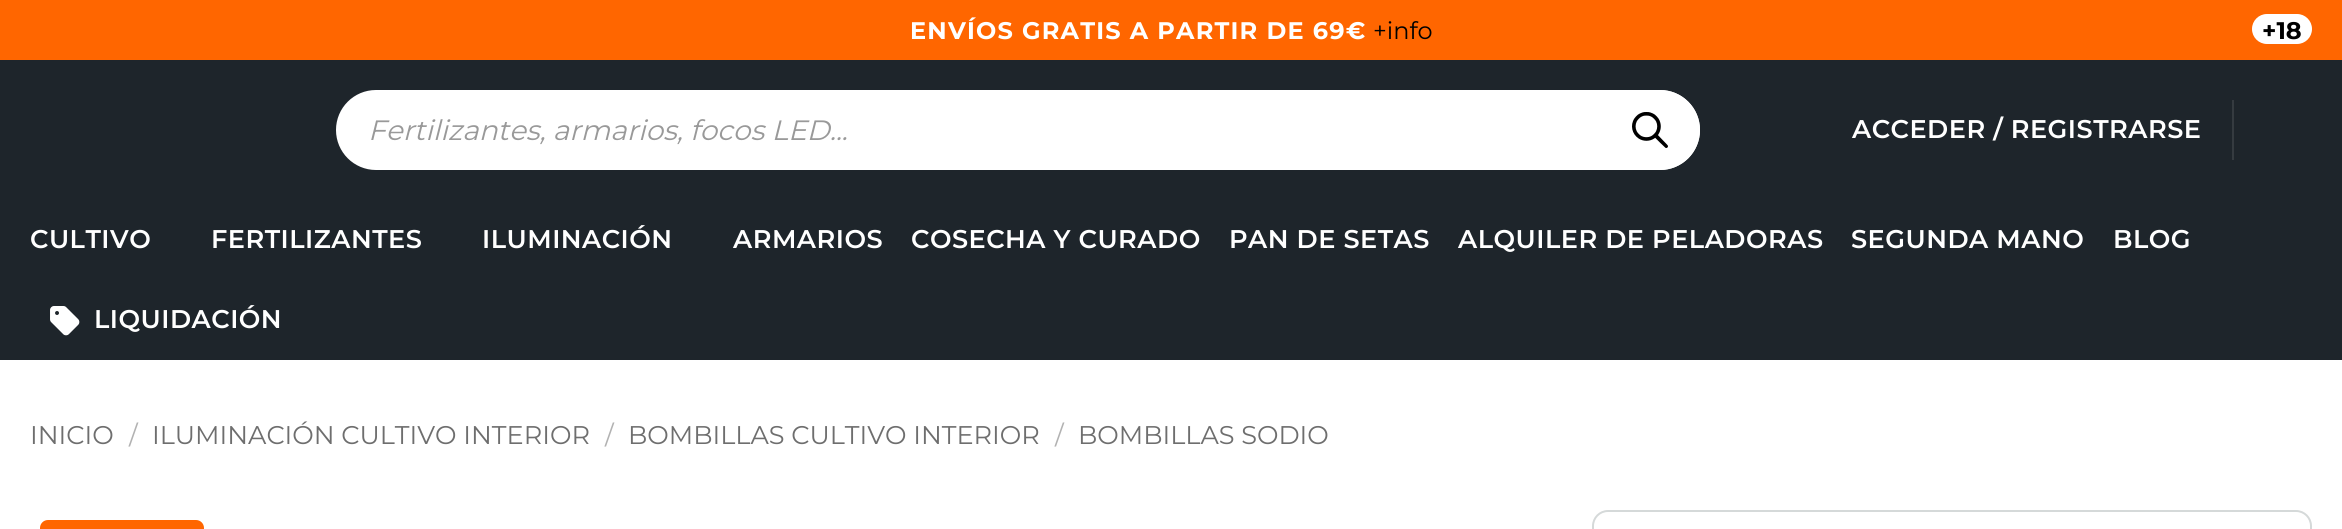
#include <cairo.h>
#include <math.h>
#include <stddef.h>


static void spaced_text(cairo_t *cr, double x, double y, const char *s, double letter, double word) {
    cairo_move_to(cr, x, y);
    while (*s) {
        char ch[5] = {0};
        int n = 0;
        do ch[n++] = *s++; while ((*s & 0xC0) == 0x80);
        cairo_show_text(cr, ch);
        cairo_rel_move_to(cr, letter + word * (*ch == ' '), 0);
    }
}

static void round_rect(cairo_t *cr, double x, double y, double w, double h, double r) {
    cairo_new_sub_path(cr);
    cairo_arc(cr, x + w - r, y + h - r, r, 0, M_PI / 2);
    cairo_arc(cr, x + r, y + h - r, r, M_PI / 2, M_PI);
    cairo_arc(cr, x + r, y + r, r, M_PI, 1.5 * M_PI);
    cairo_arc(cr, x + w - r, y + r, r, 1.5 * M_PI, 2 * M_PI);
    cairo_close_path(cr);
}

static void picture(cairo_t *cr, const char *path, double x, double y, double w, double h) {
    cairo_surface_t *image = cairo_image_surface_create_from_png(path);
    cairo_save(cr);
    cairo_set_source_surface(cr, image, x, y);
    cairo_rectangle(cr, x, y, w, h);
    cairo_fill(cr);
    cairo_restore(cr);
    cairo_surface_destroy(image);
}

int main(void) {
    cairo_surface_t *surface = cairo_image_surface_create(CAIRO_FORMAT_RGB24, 2342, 529);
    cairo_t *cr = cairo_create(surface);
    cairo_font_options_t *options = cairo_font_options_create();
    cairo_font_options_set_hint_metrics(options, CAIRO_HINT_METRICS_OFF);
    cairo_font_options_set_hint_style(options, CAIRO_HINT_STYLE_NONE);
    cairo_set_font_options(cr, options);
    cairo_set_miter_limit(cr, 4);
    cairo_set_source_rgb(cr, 1, 1, 1);
    cairo_paint(cr);
    cairo_set_source_rgb(cr, 1, 0.4, 0);
    cairo_rectangle(cr, 0, 0, 2342, 60);
    cairo_fill(cr);
    cairo_select_font_face(cr, "Montserrat", CAIRO_FONT_SLANT_NORMAL, CAIRO_FONT_WEIGHT_BOLD);
    cairo_set_font_size(cr, 24);
    cairo_set_source_rgb(cr, 1, 1, 1);
    spaced_text(cr, 910, 39, "ENVÍOS GRATIS A PARTIR DE 69€", 1.2, 0);
    cairo_select_font_face(cr, "Montserrat", CAIRO_FONT_SLANT_NORMAL, CAIRO_FONT_WEIGHT_NORMAL);
    cairo_set_source_rgb(cr, 0, 0, 0);
    cairo_move_to(cr, 1373, 39);
    cairo_show_text(cr, "+info");
    cairo_set_source_rgb(cr, 1, 1, 1);
    round_rect(cr, 2252, 14, 60, 30, 15);
    cairo_fill(cr);
    cairo_select_font_face(cr, "Montserrat", CAIRO_FONT_SLANT_NORMAL, CAIRO_FONT_WEIGHT_BOLD);
    cairo_set_source_rgb(cr, 0, 0, 0);
    cairo_move_to(cr, 2262, 39);
    cairo_show_text(cr, "+18");
    cairo_set_source_rgb(cr, 0.118, 0.145, 0.169);
    cairo_rectangle(cr, 0, 60, 2342, 300);
    cairo_fill(cr);
    cairo_set_source_rgb(cr, 1, 1, 1);
    round_rect(cr, 337, 91, 1362, 78, 39);
    cairo_fill_preserve(cr);
    cairo_stroke(cr);
    cairo_select_font_face(cr, "Montserrat", CAIRO_FONT_SLANT_ITALIC, CAIRO_FONT_WEIGHT_NORMAL);
    cairo_set_font_size(cr, 28);
    cairo_set_source_rgb(cr, 0.6, 0.6, 0.6);
    cairo_move_to(cr, 368, 140);
    cairo_show_text(cr, "Fertilizantes, armarios, focos LED...");
    cairo_set_source_rgb(cr, 1, 1, 1);
    round_rect(cr, 1600, 90, 100, 80, 40);
    cairo_fill(cr);
    picture(cr, "img1.png", 1632, 112, 36, 36);
    cairo_select_font_face(cr, "Montserrat SemiBold", CAIRO_FONT_SLANT_NORMAL, CAIRO_FONT_WEIGHT_NORMAL);
    cairo_set_font_size(cr, 25.6);
    spaced_text(cr, 1852, 138, "ACCEDER / REGISTRARSE", 0.5, 0);
    cairo_set_source_rgb(cr, 0.208, 0.231, 0.251);
    cairo_rectangle(cr, 2232, 100, 2, 60);
    cairo_fill(cr);
    cairo_set_source_rgb(cr, 1, 1, 1);
    spaced_text(cr, 30, 248, "CULTIVO", 0.5, 0);
    spaced_text(cr, 211, 248, "FERTILIZANTES", 0.5, 0);
    spaced_text(cr, 482, 248, "ILUMINACIÓN", 0.5, 0);
    spaced_text(cr, 733, 248, "ARMARIOS", 0.5, 0);
    spaced_text(cr, 911, 248, "COSECHA Y CURADO", 0.5, 0);
    spaced_text(cr, 1229, 248, "PAN DE SETAS", 0.5, 0);
    spaced_text(cr, 1458, 248, "ALQUILER DE PELADORAS", 0.5, 0);
    spaced_text(cr, 1851, 248, "SEGUNDA MANO", 0.5, 0);
    spaced_text(cr, 2113, 248, "BLOG", 0.5, 0);
    picture(cr, "img2.png", 50, 306, 30, 30);
    spaced_text(cr, 94, 328, "LIQUIDACIÓN", 0.5, 0);
    cairo_select_font_face(cr, "Montserrat", CAIRO_FONT_SLANT_NORMAL, CAIRO_FONT_WEIGHT_NORMAL);
    cairo_set_source_rgb(cr, 0.431, 0.431, 0.431);
    cairo_move_to(cr, 30, 444);
    cairo_show_text(cr, "INICIO");
    cairo_set_source_rgb(cr, 0.698, 0.698, 0.698);
    cairo_move_to(cr, 129, 444);
    cairo_show_text(cr, "/");
    cairo_set_source_rgb(cr, 0.431, 0.431, 0.431);
    cairo_move_to(cr, 152, 444);
    cairo_show_text(cr, "ILUMINACIÓN CULTIVO INTERIOR");
    cairo_set_source_rgb(cr, 0.698, 0.698, 0.698);
    cairo_move_to(cr, 605, 444);
    cairo_show_text(cr, "/");
    cairo_set_source_rgb(cr, 0.431, 0.431, 0.431);
    cairo_move_to(cr, 628, 444);
    cairo_show_text(cr, "BOMBILLAS CULTIVO INTERIOR");
    cairo_set_source_rgb(cr, 0.698, 0.698, 0.698);
    cairo_move_to(cr, 1055, 444);
    cairo_show_text(cr, "/");
    cairo_set_source_rgb(cr, 0.431, 0.431, 0.431);
    cairo_move_to(cr, 1078, 444);
    cairo_show_text(cr, "BOMBILLAS SODIO");
    cairo_set_source_rgb(cr, 1, 0.4, 0);
    round_rect(cr, 40, 520, 164, 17, 8);
    cairo_fill(cr);
    round_rect(cr, 1593, 511, 718, 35, 15);
    cairo_set_source_rgb(cr, 0.835, 0.851, 0.851);
    cairo_stroke(cr);
    cairo_surface_write_to_png(surface, "page.png");
    cairo_font_options_destroy(options);
    cairo_destroy(cr);
    cairo_surface_destroy(surface);
    return 0;
}
